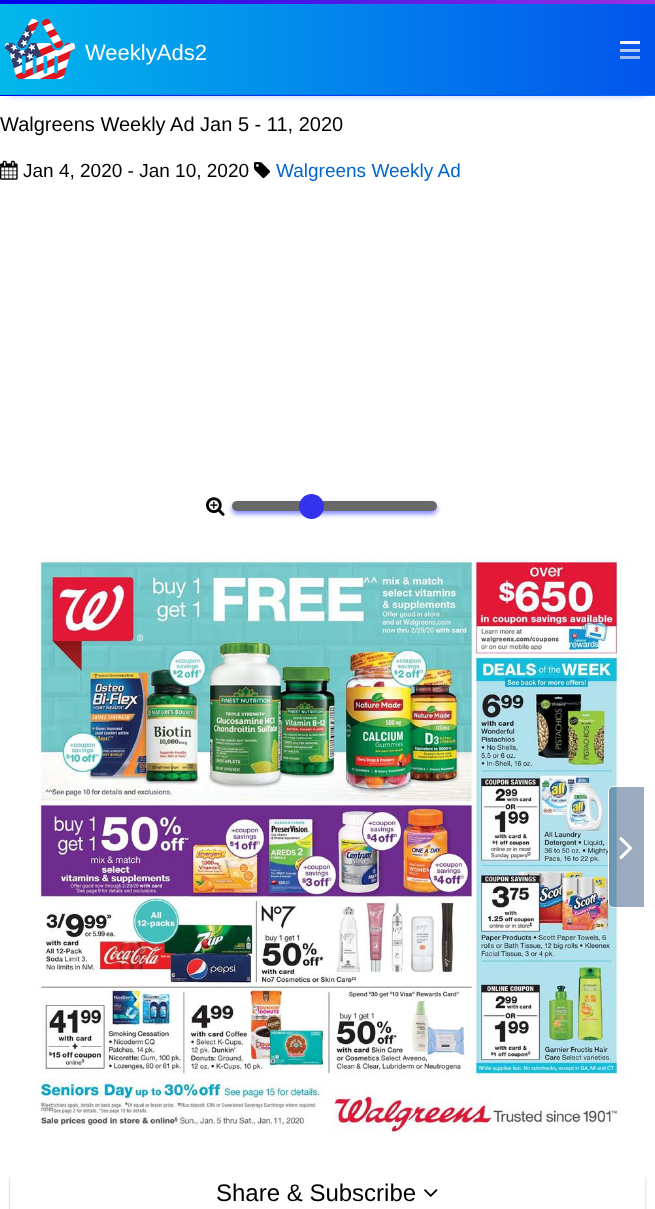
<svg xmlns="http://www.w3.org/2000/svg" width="655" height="1209">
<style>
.a{font:22px Liberation Sans;fill:#fff}
.b{font:20px Liberation Sans;fill:#000}
.c{font:19px Liberation Sans;fill:#000}
.d{font:19px Liberation Sans;fill:#06c}
.e{font:24px Liberation Sans;fill:#000}
</style>
<defs>
<linearGradient id="g1" gradientUnits="userSpaceOnUse" x1="0" y1="50" x2="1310" y2="49"><stop offset="0" stop-color="#02b8ec"/><stop offset="0.51" stop-color="#0252ec"/><stop offset="1" stop-color="#02b8ec"/></linearGradient>
<linearGradient id="g2" gradientUnits="userSpaceOnUse" x1="0" y1="50" x2="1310" y2="49"><stop offset="0" stop-color="#9edff2"/><stop offset="0.51" stop-color="#9ebaf2"/><stop offset="1" stop-color="#9edff2"/></linearGradient>
<linearGradient id="g3" gradientUnits="userSpaceOnUse" x1="0" y1="50" x2="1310" y2="49"><stop offset="0" stop-color="#b6e5f3"/><stop offset="0.51" stop-color="#b6cbf3"/><stop offset="1" stop-color="#b6e5f3"/></linearGradient>
<clipPath id="clip1"><path d="M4 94h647v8H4z"/></clipPath>
<clipPath id="clip2"><path d="M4 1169h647v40h-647zm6 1h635v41c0 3-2 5-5 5h-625c-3 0-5-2-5-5z" clip-rule="evenodd"/></clipPath>
</defs>
<rect width="100%" height="100%" fill="#fff"/>
<image href="1.png" x="0" y="0" width="655" height="4"/>
<path fill="url(#g1)" d="M0 4h655v91H0z"/>
<path fill="url(#g2)" d="M620 56h20v3H620z"/>
<path fill="url(#g3)" d="M620 49h20v3H620z"/>
<image href="2.png" x="0" y="95" width="655" height="1"/>
<g clip-path="url(#clip1)">
<path fill="#0050e86b" filter="blur(5px)" d="M10 24h635v70H10z"/>
</g>
<path fill="#f5f5f5" d="M620 41h20v3H620z"/>
<image href="3.png" x="5" y="19" width="70" height="60"/>
<image href="4.png" x="0" y="160" width="18" height="20"/>
<image href="5.png" x="254" y="162" width="16" height="17"/>
<image href="6.png" x="206" y="497" width="19" height="19"/>
<rect fill="#3337ff9e" filter="blur(2.5px)" x="232" y="504" width="205" height="10" rx="5"/>
<rect fill="#696969" x="232" y="501" width="205" height="10" rx="5"/>
<circle fill="#3333ed" cx="311.5" cy="506.5" r="12.5"/>
<image href="7.png" x="36" y="556" width="591" height="579"/>
<path fill="#00265963" stroke="#fff" d="M613 786.5h31.5v121h-31.5c-2.5 0-4.5-2-4.5-4.5v-112c0-2.5 2-4.5 4.5-4.5z"/>
<image href="8.png" x="619" y="837" width="14" height="23"/>
<g clip-path="url(#clip2)">
<rect fill="#00000040" filter="blur(1.5px)" x="10" y="1175" width="635" height="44" rx="5"/>
</g>
<image href="9.png" x="424" y="1189" width="14" height="8"/>
<text class="a" x="85" y="60">WeeklyAds2</text>
<text class="b" x="0" y="131">Walgreens Weekly Ad Jan 5 - 11, 2020</text>
<text class="c" x="23" y="177">Jan 4, 2020 - Jan 10, 2020</text>
<text class="d" x="276" y="177">Walgreens Weekly Ad</text>
<text class="e" x="216" y="1201">Share &amp; Subscribe</text>
</svg>
